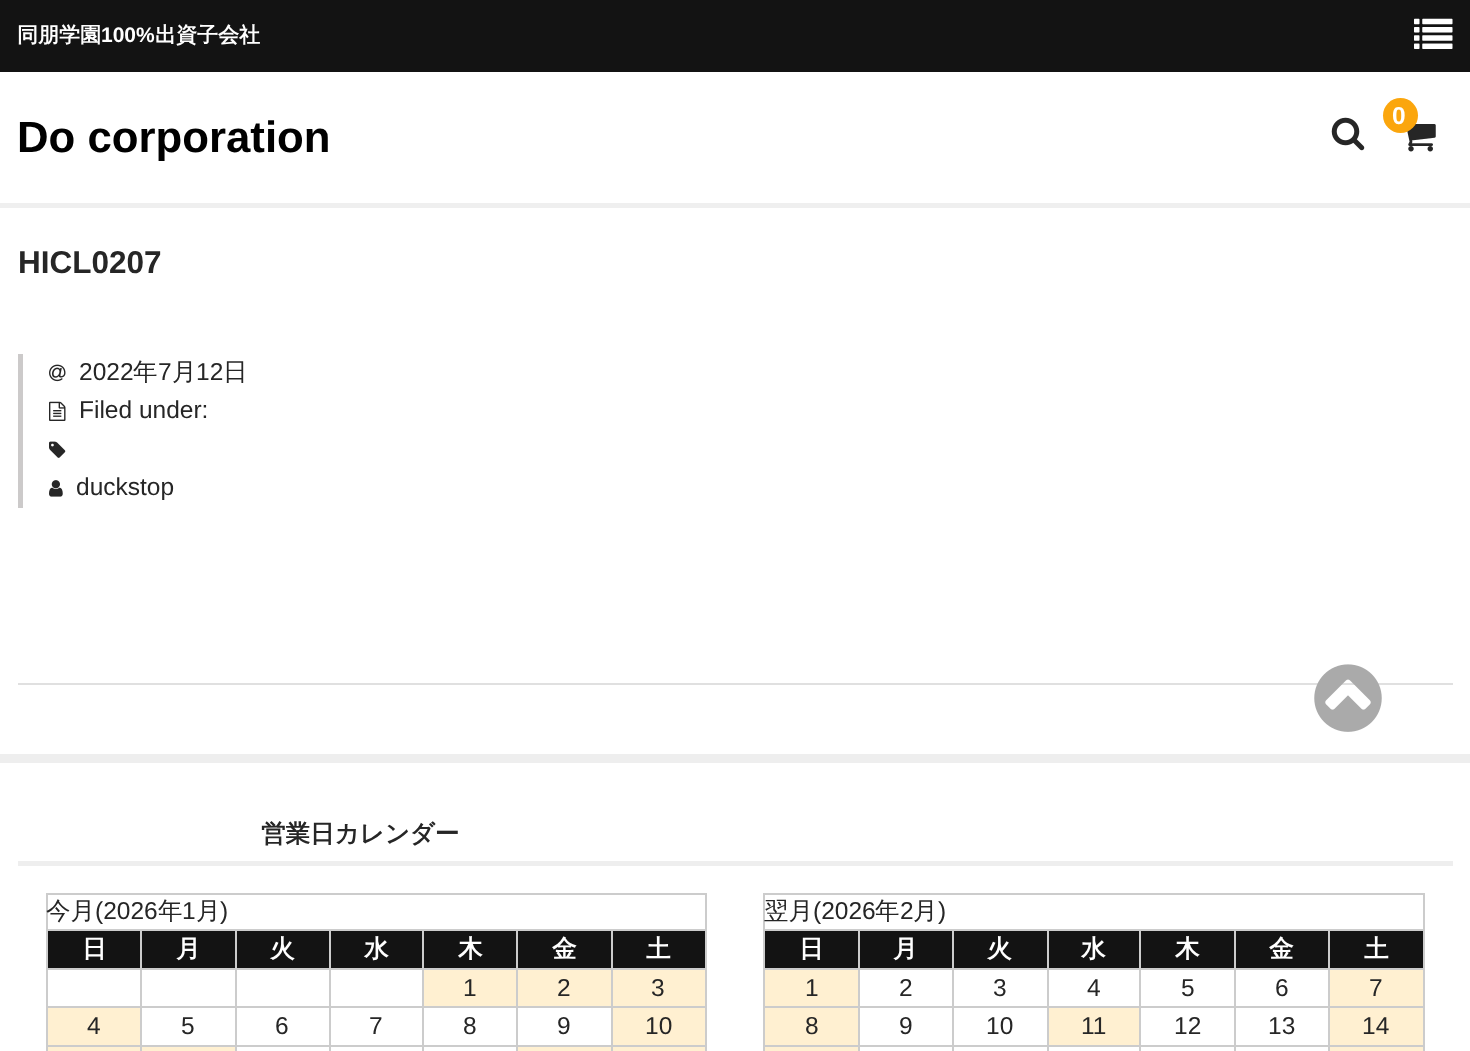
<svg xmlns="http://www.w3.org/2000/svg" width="1470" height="1051">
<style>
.a{font:bold 21px WenQuanYi Zen Hei;fill:#fff}
.b{font:bold 21px Liberation Sans;fill:#fff}
.c{font:bold 24.5px Liberation Sans;fill:#fff}
.d{font:bold 43.75px Liberation Sans;fill:#000}
.e{font:bold 31.5px Liberation Sans;fill:#262626}
.f{font:24.5px Liberation Sans;fill:#262626}
.g{font:500 24.5px WenQuanYi Zen Hei;fill:#262626}
.h{font:bold 24.5px WenQuanYi Zen Hei;fill:#262626}
.i{font:bold 24.5px WenQuanYi Zen Hei;fill:#fff}
</style>
<rect width="100%" height="100%" fill="#fff"/>
<path fill="#efefef" d="M0 203h1470v5H0z"/>
<path fill="#131313" d="M0 0h1470v72H0z"/>
<image href="1.png" x="1331" y="117" width="34" height="34"/>
<image href="2.png" x="1407" y="124" width="29" height="28"/>
<circle fill="#fba60d" cx="1400.5" cy="115.5" r="17.5"/>
<image href="3.png" x="1414" y="18" width="39" height="31"/>
<path fill="#cccaca" d="M18 354h5v154H18z"/>
<image href="4.png" x="49" y="364" width="17" height="18"/>
<image href="5.png" x="49" y="401" width="17" height="20"/>
<image href="6.png" x="49" y="441" width="17" height="17"/>
<image href="7.png" x="49" y="480" width="14" height="17"/>
<path fill="#e0e0e0" d="M18 683h1435v2H18z"/>
<path fill="#eee" d="M0 754h1470v9H0z"/>
<path fill="#eee" d="M18 861h1435v5H18z"/>
<path fill="#ccc" d="M46 893h661v2H46z"/>
<path fill="#ccc" d="M705 893h2v158H705z"/>
<path fill="#fff0d1" d="M47 1047h188v4H47z"/>
<path fill="#ccc" d="M46 893h2v158H46z"/>
<path fill="#131313" d="M48 931h92v37H48z"/>
<path fill="#ccc" d="M611 929h96v2H611z"/>
<path fill="#ccc" d="M611 968h96v2H611z"/>
<path fill="#ccc" d="M611 1006h96v2H611z"/>
<path fill="#ccc" d="M611 1045h96v2H611z"/>
<path fill="#fff0d1" d="M518 1047h187v4H518z"/>
<path fill="#ccc" d="M611 1045h2v6H611z"/>
<path fill="#ccc" d="M516 1045h97v2H516z"/>
<path fill="#ccc" d="M611 1006h2v41H611z"/>
<path fill="#ccc" d="M516 1006h97v2H516z"/>
<path fill="#ccc" d="M611 968h2v40H611z"/>
<path fill="#ccc" d="M516 968h97v2H516z"/>
<path fill="#ccc" d="M611 929h2v41H611z"/>
<path fill="#ccc" d="M516 929h97v2H516z"/>
<path fill="#ccc" d="M516 1045h2v6H516z"/>
<path fill="#ccc" d="M422 1045h96v2H422z"/>
<path fill="#ccc" d="M516 1006h2v41H516z"/>
<path fill="#ccc" d="M422 1006h96v2H422z"/>
<path fill="#ccc" d="M516 968h2v40H516z"/>
<path fill="#ccc" d="M422 968h96v2H422z"/>
<path fill="#ccc" d="M516 929h2v41H516z"/>
<path fill="#ccc" d="M422 929h96v2H422z"/>
<path fill="#ccc" d="M422 1045h2v6H422z"/>
<path fill="#ccc" d="M329 1045h95v2H329z"/>
<path fill="#ccc" d="M422 1006h2v41H422z"/>
<path fill="#ccc" d="M329 1006h95v2H329z"/>
<path fill="#ccc" d="M422 968h2v40H422z"/>
<path fill="#ccc" d="M329 968h95v2H329z"/>
<path fill="#ccc" d="M422 929h2v41H422z"/>
<path fill="#ccc" d="M329 929h95v2H329z"/>
<path fill="#ccc" d="M329 1045h2v6H329z"/>
<path fill="#ccc" d="M235 1045h96v2H235z"/>
<path fill="#ccc" d="M329 1006h2v41H329z"/>
<path fill="#ccc" d="M235 1006h96v2H235z"/>
<path fill="#ccc" d="M329 968h2v40H329z"/>
<path fill="#ccc" d="M235 968h96v2H235z"/>
<path fill="#ccc" d="M329 929h2v41H329z"/>
<path fill="#ccc" d="M235 929h96v2H235z"/>
<path fill="#ccc" d="M235 1045h2v6H235z"/>
<path fill="#ccc" d="M140 1045h96v2H140z"/>
<path fill="#ccc" d="M235 1006h2v41H235z"/>
<path fill="#ccc" d="M140 1006h96v2H140z"/>
<path fill="#ccc" d="M235 968h2v40H235z"/>
<path fill="#ccc" d="M140 968h96v2H140z"/>
<path fill="#ccc" d="M235 929h2v41H235z"/>
<path fill="#ccc" d="M140 929h96v2H140z"/>
<path fill="#ccc" d="M140 1045h2v6H140z"/>
<path fill="#ccc" d="M46 1045h96v2H46z"/>
<path fill="#ccc" d="M140 1006h2v41H140z"/>
<path fill="#ccc" d="M46 1006h96v2H46z"/>
<path fill="#ccc" d="M140 968h2v40H140z"/>
<path fill="#ccc" d="M46 968h96v2H46z"/>
<path fill="#ccc" d="M140 929h2v41H140z"/>
<path fill="#ccc" d="M46 929h96v2H46z"/>
<path fill="#131313" d="M142 931h93v37H142z"/>
<path fill="#131313" d="M237 931h92v37H237z"/>
<path fill="#131313" d="M331 931h91v37H331z"/>
<path fill="#131313" d="M424 931h92v37H424z"/>
<path fill="#131313" d="M518 931h93v37H518z"/>
<path fill="#131313" d="M613 931h92v37H613z"/>
<path fill="#fff0d1" d="M424 970h92v36H424z"/>
<path fill="#fff0d1" d="M518 970h93v36H518z"/>
<path fill="#fff0d1" d="M613 970h92v36H613z"/>
<path fill="#fff0d1" d="M48 1008h92v37H48z"/>
<path fill="#fff0d1" d="M613 1008h92v37H613z"/>
<path fill="#ccc" d="M763 893h662v2H763z"/>
<path fill="#ccc" d="M1423 893h2v158H1423z"/>
<path fill="#ccc" d="M763 893h2v158H763z"/>
<path fill="#131313" d="M765 931h93v37H765z"/>
<path fill="#ccc" d="M1328 929h97v2H1328z"/>
<path fill="#ccc" d="M1328 968h97v2H1328z"/>
<path fill="#ccc" d="M1328 1006h97v2H1328z"/>
<path fill="#ccc" d="M1328 1045h97v2H1328z"/>
<path fill="#fff0d1" d="M1328 1047h95v4H1328z"/>
<path fill="#ccc" d="M1328 1045h2v6H1328z"/>
<path fill="#ccc" d="M1234 1045h96v2H1234z"/>
<path fill="#ccc" d="M1328 1006h2v41H1328z"/>
<path fill="#ccc" d="M1234 1006h96v2H1234z"/>
<path fill="#ccc" d="M1328 968h2v40H1328z"/>
<path fill="#ccc" d="M1234 968h96v2H1234z"/>
<path fill="#ccc" d="M1328 929h2v41H1328z"/>
<path fill="#ccc" d="M1234 929h96v2H1234z"/>
<path fill="#ccc" d="M1234 1045h2v6H1234z"/>
<path fill="#ccc" d="M1139 1045h97v2H1139z"/>
<path fill="#ccc" d="M1234 1006h2v41H1234z"/>
<path fill="#ccc" d="M1139 1006h97v2H1139z"/>
<path fill="#ccc" d="M1234 968h2v40H1234z"/>
<path fill="#ccc" d="M1139 968h97v2H1139z"/>
<path fill="#ccc" d="M1234 929h2v41H1234z"/>
<path fill="#ccc" d="M1139 929h97v2H1139z"/>
<path fill="#ccc" d="M1139 1045h2v6H1139z"/>
<path fill="#ccc" d="M1047 1045h94v2H1047z"/>
<path fill="#ccc" d="M1139 1006h2v41H1139z"/>
<path fill="#ccc" d="M1047 1006h94v2H1047z"/>
<path fill="#ccc" d="M1139 968h2v40H1139z"/>
<path fill="#ccc" d="M1047 968h94v2H1047z"/>
<path fill="#ccc" d="M1139 929h2v41H1139z"/>
<path fill="#ccc" d="M1047 929h94v2H1047z"/>
<path fill="#ccc" d="M1047 1045h2v6H1047z"/>
<path fill="#ccc" d="M952 1045h96v2H952z"/>
<path fill="#ccc" d="M1047 1006h2v41H1047z"/>
<path fill="#ccc" d="M952 1006h96v2H952z"/>
<path fill="#ccc" d="M1047 968h2v40H1047z"/>
<path fill="#ccc" d="M952 968h96v2H952z"/>
<path fill="#ccc" d="M1047 929h2v41H1047z"/>
<path fill="#ccc" d="M952 929h96v2H952z"/>
<path fill="#ccc" d="M952 1045h2v6H952z"/>
<path fill="#ccc" d="M858 1045h96v2H858z"/>
<path fill="#ccc" d="M952 1006h2v41H952z"/>
<path fill="#ccc" d="M858 1006h96v2H858z"/>
<path fill="#ccc" d="M952 968h2v40H952z"/>
<path fill="#ccc" d="M858 968h96v2H858z"/>
<path fill="#ccc" d="M952 929h2v41H952z"/>
<path fill="#ccc" d="M858 929h96v2H858z"/>
<path fill="#fff0d1" d="M765 1047h94v4H765z"/>
<path fill="#ccc" d="M858 1045h2v6H858z"/>
<path fill="#ccc" d="M763 1045h96v2H763z"/>
<path fill="#ccc" d="M858 1006h2v41H858z"/>
<path fill="#ccc" d="M763 1006h96v2H763z"/>
<path fill="#ccc" d="M858 968h2v40H858z"/>
<path fill="#ccc" d="M763 968h96v2H763z"/>
<path fill="#ccc" d="M858 929h2v41H858z"/>
<path fill="#ccc" d="M763 929h96v2H763z"/>
<path fill="#131313" d="M860 931h92v37H860z"/>
<path fill="#131313" d="M954 931h93v37H954z"/>
<path fill="#131313" d="M1049 931h90v37H1049z"/>
<path fill="#131313" d="M1141 931h93v37H1141z"/>
<path fill="#131313" d="M1236 931h92v37H1236z"/>
<path fill="#131313" d="M1330 931h93v37H1330z"/>
<path fill="#fff0d1" d="M765 970h93v36H765z"/>
<path fill="#fff0d1" d="M1330 970h93v36H1330z"/>
<path fill="#fff0d1" d="M765 1008h93v37H765z"/>
<path fill="#fff0d1" d="M1049 1008h90v37H1049z"/>
<path fill="#fff0d1" d="M1330 1008h93v37H1330z"/>
<image href="8.png" x="1314" y="664" width="68" height="68"/>
<text class="a" x="17" y="42">同朋学園</text>
<text class="b" x="101" y="42">100%</text>
<text class="a" x="155" y="42">出資子会社</text>
<text class="c" x="1392" y="124">0</text>
<text class="d" x="17" y="152">Do corporation</text>
<text class="e" x="18" y="273">HICL0207</text>
<text class="f" x="79" y="380">2022</text>
<text class="g" x="133" y="380">年</text>
<text class="f" x="158" y="380">7</text>
<text class="g" x="172" y="380">月</text>
<text class="f" x="196" y="380">12</text>
<text class="g" x="223" y="380">日</text>
<text class="f" x="79" y="418">Filed under:</text>
<text class="f" x="76" y="495">duckstop</text>
<text class="h" x="261" y="842">営業日カレンダー</text>
<text class="g" x="46" y="919">今月</text>
<text class="f" x="95" y="919">(2026</text>
<text class="g" x="158" y="919">年</text>
<text class="f" x="182" y="919">1</text>
<text class="g" x="196" y="919">月</text>
<text class="f" x="220" y="919">)</text>
<text class="i" x="82" y="957">日</text>
<text class="i" x="176" y="957">月</text>
<text class="i" x="270" y="957">火</text>
<text class="i" x="364" y="957">水</text>
<text class="i" x="458" y="957">木</text>
<text class="i" x="552" y="957">金</text>
<text class="i" x="646" y="957">土</text>
<text class="f" x="463" y="996">1</text>
<text class="f" x="557" y="996">2</text>
<text class="f" x="651" y="996">3</text>
<text class="f" x="87" y="1034">4</text>
<text class="f" x="181" y="1034">5</text>
<text class="f" x="275" y="1034">6</text>
<text class="f" x="369" y="1034">7</text>
<text class="f" x="463" y="1034">8</text>
<text class="f" x="557" y="1034">9</text>
<text class="f" x="645" y="1034">10</text>
<text class="g" x="764" y="919">翌月</text>
<text class="f" x="813" y="919">(2026</text>
<text class="g" x="875" y="919">年</text>
<text class="f" x="900" y="919">2</text>
<text class="g" x="913" y="919">月</text>
<text class="f" x="938" y="919">)</text>
<text class="i" x="799" y="957">日</text>
<text class="i" x="893" y="957">月</text>
<text class="i" x="987" y="957">火</text>
<text class="i" x="1081" y="957">水</text>
<text class="i" x="1175" y="957">木</text>
<text class="i" x="1269" y="957">金</text>
<text class="i" x="1364" y="957">土</text>
<text class="f" x="805" y="996">1</text>
<text class="f" x="899" y="996">2</text>
<text class="f" x="993" y="996">3</text>
<text class="f" x="1087" y="996">4</text>
<text class="f" x="1181" y="996">5</text>
<text class="f" x="1275" y="996">6</text>
<text class="f" x="1369" y="996">7</text>
<text class="f" x="805" y="1034">8</text>
<text class="f" x="899" y="1034">9</text>
<text class="f" x="986" y="1034">10</text>
<text class="f" x="1081" y="1034">11</text>
<text class="f" x="1174" y="1034">12</text>
<text class="f" x="1268" y="1034">13</text>
<text class="f" x="1362" y="1034">14</text>
</svg>
